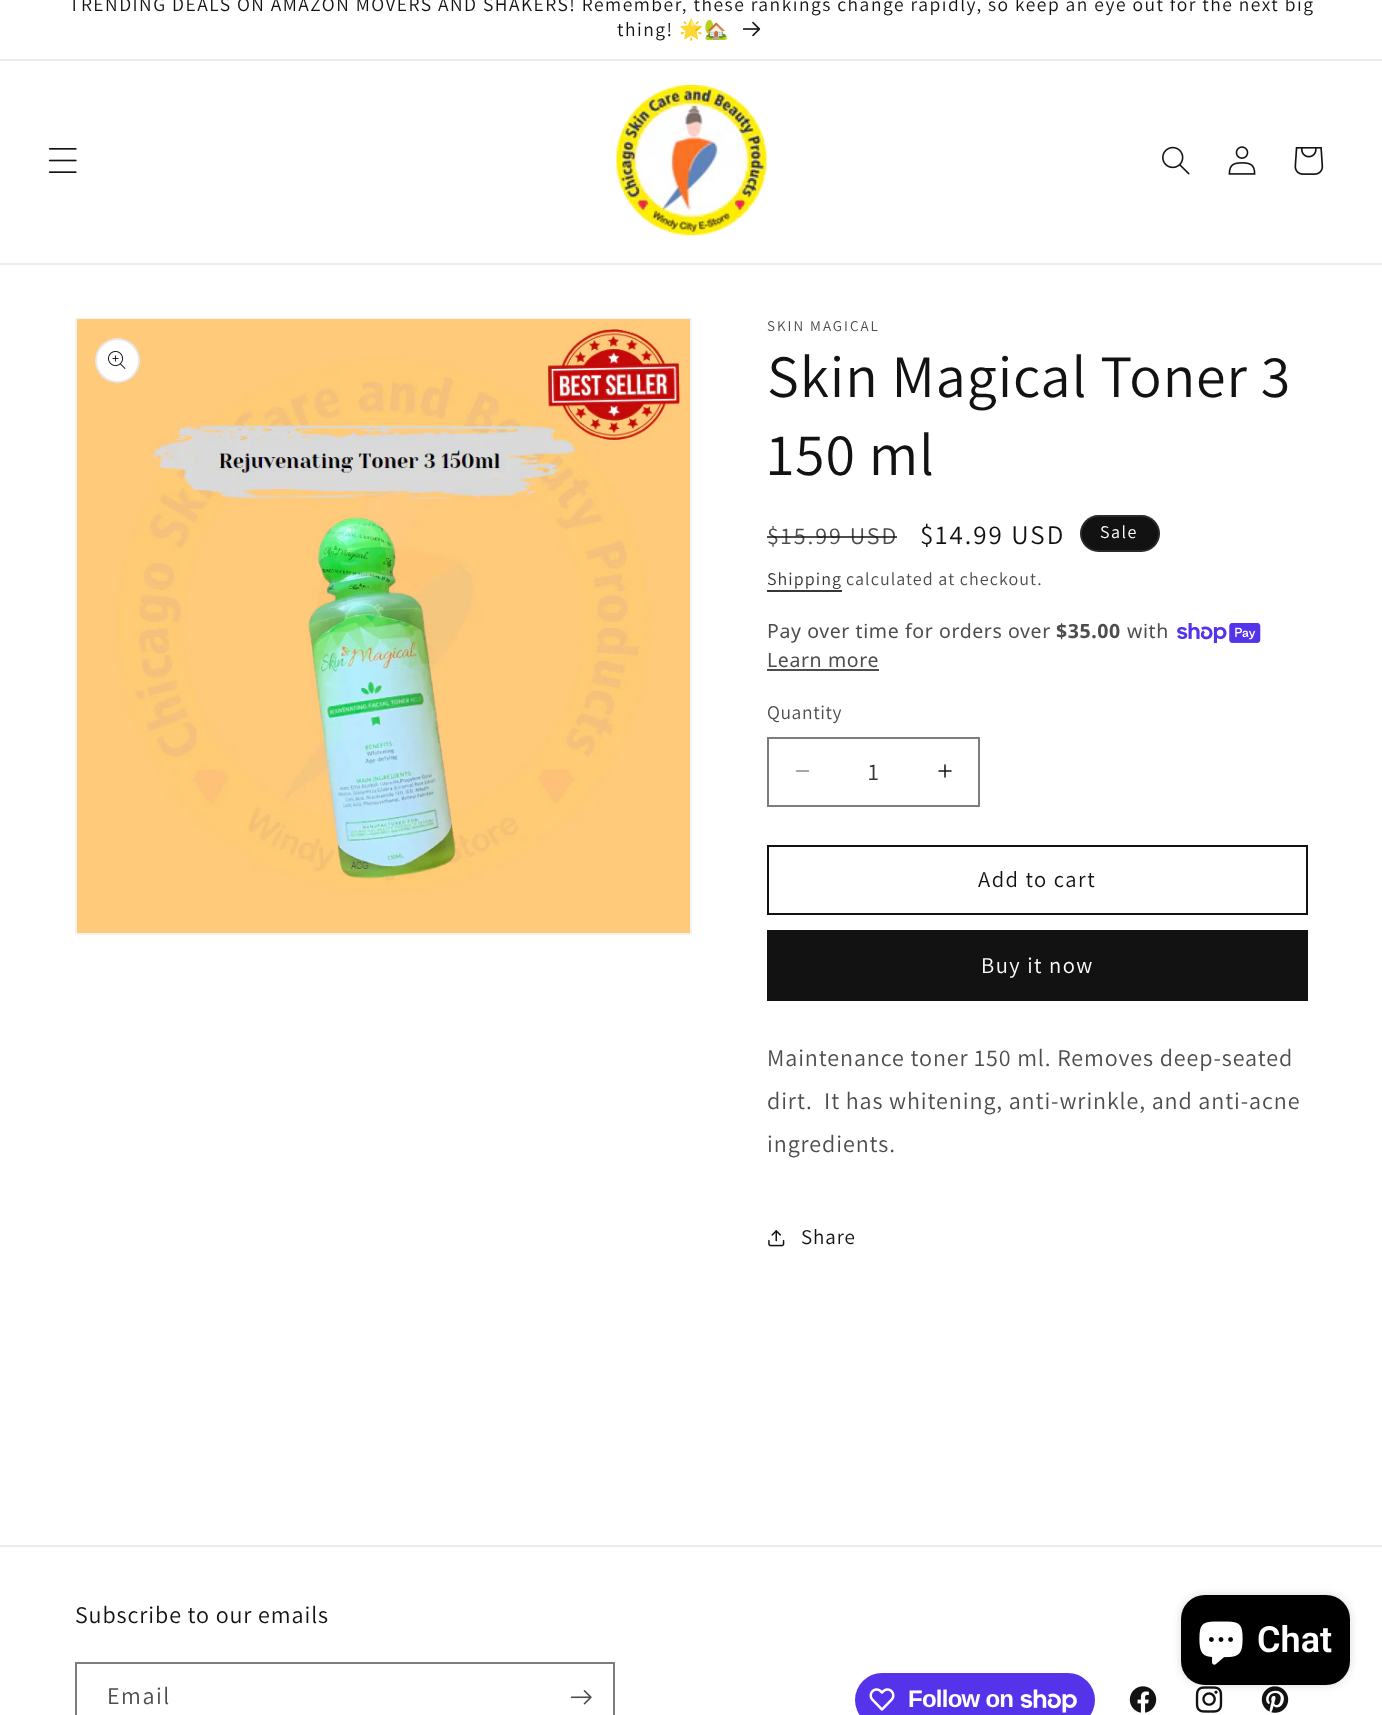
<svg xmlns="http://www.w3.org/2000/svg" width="1382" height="1715">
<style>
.a{font:19.5px Assistant;letter-spacing:1.5px;fill:#121212}
.b{font:19.5px Noto Color Emoji;letter-spacing:1.5px;fill:#121212}
.c{font:15px Assistant;letter-spacing:2px;fill:#4d4d4d}
.d{font:60px Assistant;letter-spacing:0.9px;fill:#121212}
.e{font:24px Assistant;letter-spacing:2px;fill:#4d4d4d}
.f{font:27px Assistant;letter-spacing:2px;fill:#121212}
.g{font:18px Assistant;letter-spacing:1.5px;fill:#fff}
.h{font:18px Assistant;letter-spacing:1.05px;fill:#363636}
.i{font:18px Assistant;letter-spacing:1.05px;fill:#4d4d4d}
.j{font:19.5px Noto Sans;letter-spacing:0.6px;fill:#4d4d4d}
.k{font:bold 19.5px Noto Sans;letter-spacing:0.6px;fill:#4d4d4d}
.l{font:19.5px Assistant;letter-spacing:0.6px;fill:#4d4d4d}
.m{font:24px Assistant;fill:#363636}
.n{font:22.5px Assistant;letter-spacing:1.5px;fill:#121212}
.o{font:22.5px Assistant;letter-spacing:1.5px;fill:#fff}
.p{font:24px Assistant;letter-spacing:0.9px;fill:#4d4d4d}
.q{font:21px Assistant;letter-spacing:0.9px;fill:#121212}
.r{font:24px Assistant;letter-spacing:0.9px;fill:#121212}
.s{font:24px Assistant;letter-spacing:1.5px;fill:#4d4d4d}
.t{font:bold 24px Liberation Sans;letter-spacing:-0.75px;fill:#fff}
.u{font:600 36px Roboto;fill:#fff}
</style>
<rect width="100%" height="100%" fill="#fff"/>
<path fill="#ececec" d="M0 59h1382v2H0z"/>
<image href="1.png" x="743" y="21" width="18" height="16"/>
<path fill="#ececec" d="M0 263h1382v2H0z"/>
<image href="2.png" x="48" y="148" width="29" height="25"/>
<image href="3.png" x="616" y="85" width="151" height="151"/>
<image href="4.png" x="1162" y="146" width="28" height="29"/>
<image href="5.png" x="1228" y="146" width="28" height="29"/>
<image href="6.png" x="1294" y="147" width="30" height="28"/>
<path fill="none" stroke="#f3f3f3" stroke-width="2" d="M76 319h615v615H76z"/>
<image href="7.png" x="77" y="319" width="613" height="614"/>
<circle fill="#fff" cx="117.5" cy="360.5" r="22.5"/>
<circle fill="none" stroke="#1212121a" stroke-width="2" cx="117.5" cy="360.5" r="21.5"/>
<image href="8.png" x="108" y="351" width="18" height="18"/>
<rect fill="#121212" x="1080" y="515" width="80" height="37" rx="18.5"/>
<rect fill="none" stroke="#ffffff1a" stroke-width="2" x="1081" y="516" width="78" height="35" rx="17.5"/>
<path fill="#363636" d="M767 590h75v2H767z"/>
<image href="9.png" x="1177" y="623" width="84" height="21"/>
<path fill="#4d4d4d" d="M767 669h112v2H767z"/>
<image href="10.png" x="795" y="770" width="15" height="2"/>
<image href="11.png" x="938" y="764" width="14" height="14"/>
<path fill="none" stroke="#7d7d7d" stroke-width="2" d="M768 738h211v68H768z"/>
<path fill="none" stroke="#121212" stroke-width="2" d="M768 846h539v68H768z"/>
<path fill="#121212" d="M767 930h541v71H767z"/>
<image href="12.png" x="768" y="1230" width="17" height="17"/>
<path fill="#ececec" d="M0 1545h1382v2H0z"/>
<path fill="none" stroke="#7d7d7d" stroke-width="2" d="M76 1663h538v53H76z"/>
<image href="13.png" x="570" y="1690" width="22" height="15"/>
<rect fill="#5433eb" x="855" y="1673" width="240" height="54" rx="27"/>
<image href="14.png" x="869" y="1688" width="26" height="23"/>
<image href="15.png" x="1020" y="1689" width="57" height="24"/>
<image href="16.png" x="1129" y="1686" width="28" height="27"/>
<image href="17.png" x="1195" y="1686" width="28" height="27"/>
<image href="18.png" x="1261" y="1686" width="28" height="27"/>
<rect fill="#00000026" filter="blur(4px)" x="1181" y="1595" width="169" height="90" rx="24"/>
<rect fill="#000" x="1181" y="1595" width="169" height="90" rx="24"/>
<image href="19.png" x="1199" y="1621" width="44" height="44"/>
<text class="a" x="69" y="11">TRENDING DEALS ON AMAZON MOVERS AND SHAKERS! Remember, these rankings change rapidly, so keep an eye out for the next big</text>
<text class="a" x="617" y="36">thing!</text>
<text class="b" x="679" y="36">🌟🏡</text>
<text class="c" x="767" y="331">SKIN MAGICAL</text>
<text class="d" x="767" y="397">Skin Magical Toner 3</text>
<text class="d" x="767" y="475">150 ml</text>
<text class="e" x="767" y="544">$15.99 USD</text>
<path fill="#121212bf" d="M767 536h130v2H767z"/>
<text class="f" x="920" y="544">$14.99 USD</text>
<text class="g" x="1100" y="538">Sale</text>
<text class="h" x="767" y="585">Shipping</text>
<text class="i" x="846" y="585">calculated at checkout.</text>
<text class="j" x="767" y="638">Pay over time for orders over</text>
<text class="k" x="1056" y="638">$35.00</text>
<text class="j" x="1127" y="638">with</text>
<text class="j" x="767" y="667">Learn more</text>
<text class="l" x="767" y="719">Quantity</text>
<text class="m" x="868" y="780">1</text>
<text class="n" x="978" y="887">Add to cart</text>
<text class="o" x="981" y="973">Buy it now</text>
<text class="p" x="767" y="1066">Maintenance toner 150 ml. Removes deep-seated</text>
<text class="p" xml:space="preserve" x="767" y="1109">dirt.  It has whitening, anti-wrinkle, and anti-acne</text>
<text class="p" x="767" y="1152">ingredients.</text>
<text class="q" x="801" y="1244">Share</text>
<text class="r" x="75" y="1623">Subscribe to our emails</text>
<text class="s" x="107" y="1704">Email</text>
<text class="t" x="908" y="1707">Follow on</text>
<text class="u" x="1257" y="1652">Chat</text>
</svg>
